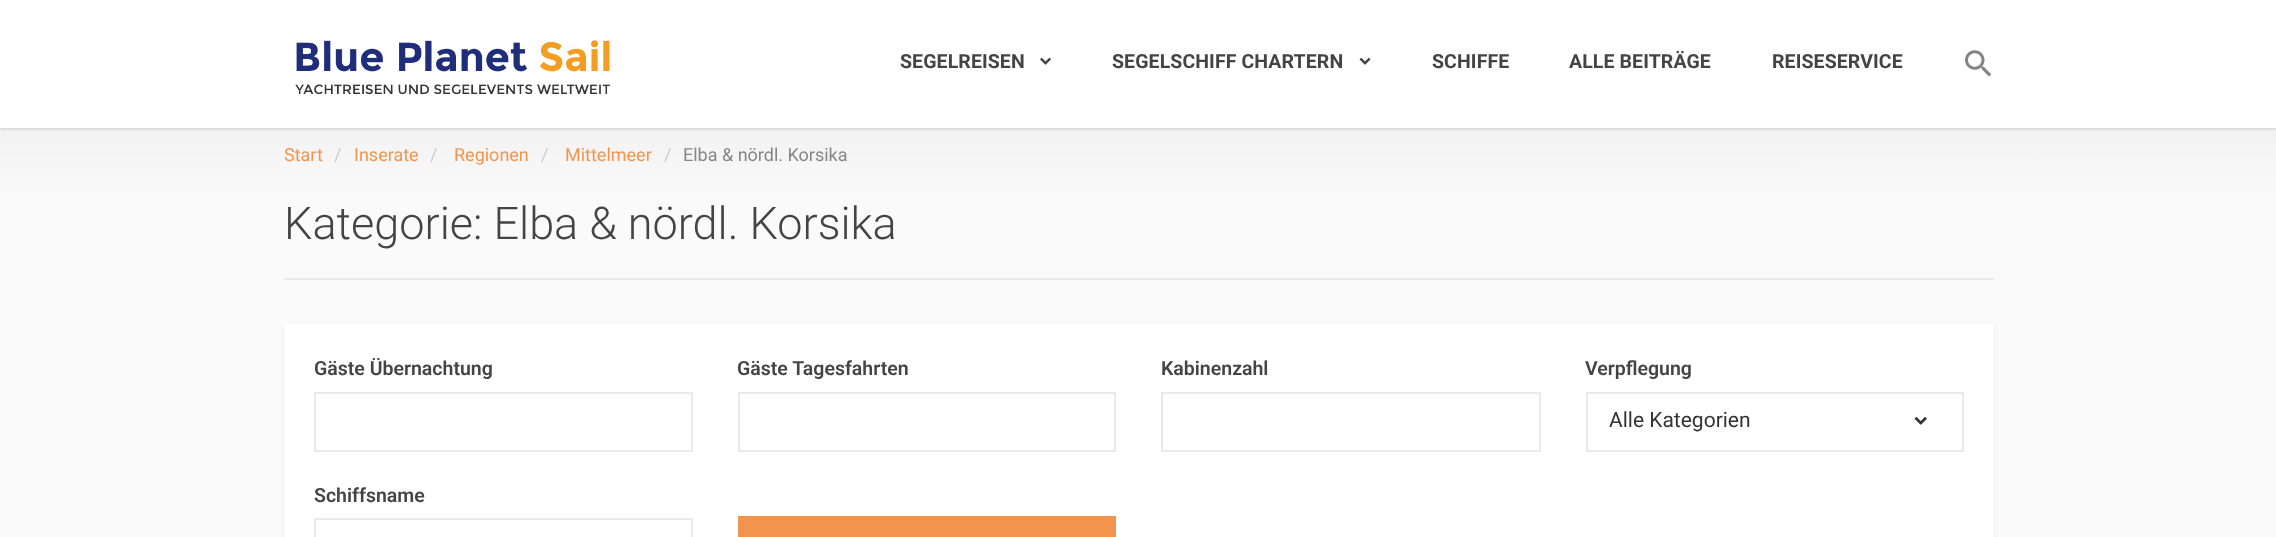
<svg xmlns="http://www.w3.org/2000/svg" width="2276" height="537">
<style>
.a{font:bold 19.5px Roboto;letter-spacing:0.1px;fill:#444}
.b{font:18px Roboto;fill:#f2944e}
.c{font:18px Roboto;fill:#ccc}
.d{font:18px Roboto;fill:#868686}
.e{font:300 45px Roboto;fill:#444}
.f{font:600 19.5px Roboto;fill:#444}
.g{font:21px Roboto;fill:#333}
</style>
<defs>
<linearGradient id="g1" gradientUnits="userSpaceOnUse" x1="1138" y1="127" x2="1139" y2="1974"><stop offset="0" stop-color="#f2f2f2"/><stop offset="0.04" stop-color="#fafafa"/></linearGradient>
</defs>
<rect width="100%" height="100%" fill="#fff"/>
<path fill="url(#g1)" d="M0 128h2276v409H0z"/>
<path fill="#00000026" filter="blur(1.5px)" d="M0 2h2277v127H0z"/>
<path fill="#fff" d="M0 0h2276v128H0z"/>
<image href="1.png" x="295" y="40" width="315" height="55"/>
<image href="2.png" x="1040" y="57" width="11" height="8"/>
<image href="3.png" x="1359" y="57" width="12" height="8"/>
<image href="4.png" x="1965" y="50" width="27" height="27"/>
<path fill="#e9e9e9" d="M284 278h1710v2H284z"/>
<path fill="#0000001a" filter="blur(1.5px)" d="M284 326h1710v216H284z"/>
<path fill="#fff" d="M284 324h1710v213H284z"/>
<path fill="none" stroke="#e9e9e9" stroke-width="2" d="M315 393h377v58H315z"/>
<path fill="none" stroke="#e9e9e9" stroke-width="2" d="M739 393h376v58H739z"/>
<path fill="none" stroke="#e9e9e9" stroke-width="2" d="M1162 393h378v58H1162z"/>
<path fill="none" stroke="#e9e9e9" stroke-width="2" d="M1587 393h376v58H1587z"/>
<image href="5.png" x="1914" y="417" width="13" height="8"/>
<path fill="none" stroke="#e9e9e9" stroke-width="2" d="M315 519h377v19H315z"/>
<path fill="#f2944e" d="M738 516h378v21H738z"/>
<text class="a" x="900" y="68">SEGELREISEN</text>
<text class="a" x="1112" y="68">SEGELSCHIFF CHARTERN</text>
<text class="a" x="1432" y="68">SCHIFFE</text>
<text class="a" x="1569" y="68">ALLE BEITRÄGE</text>
<text class="a" x="1772" y="68">REISESERVICE</text>
<text class="b" x="284" y="161">Start</text>
<text class="c" x="334" y="161">/</text>
<text class="b" x="354" y="161">Inserate</text>
<text class="c" x="430" y="161">/</text>
<text class="b" x="454" y="161">Regionen</text>
<text class="c" x="541" y="161">/</text>
<text class="b" x="565" y="161">Mittelmeer</text>
<text class="c" x="664" y="161">/</text>
<text class="d" x="683" y="161">Elba &amp; nördl. Korsika</text>
<text class="e" x="284" y="239">Kategorie: Elba &amp; nördl. Korsika</text>
<text class="f" x="314" y="375">Gäste Übernachtung</text>
<text class="f" x="737" y="375">Gäste Tagesfahrten</text>
<text class="f" x="1161" y="375">Kabinenzahl</text>
<text class="f" x="1585" y="375">Verpflegung</text>
<text class="g" x="1609" y="427">Alle Kategorien</text>
<text class="f" x="314" y="502">Schiffsname</text>
</svg>
